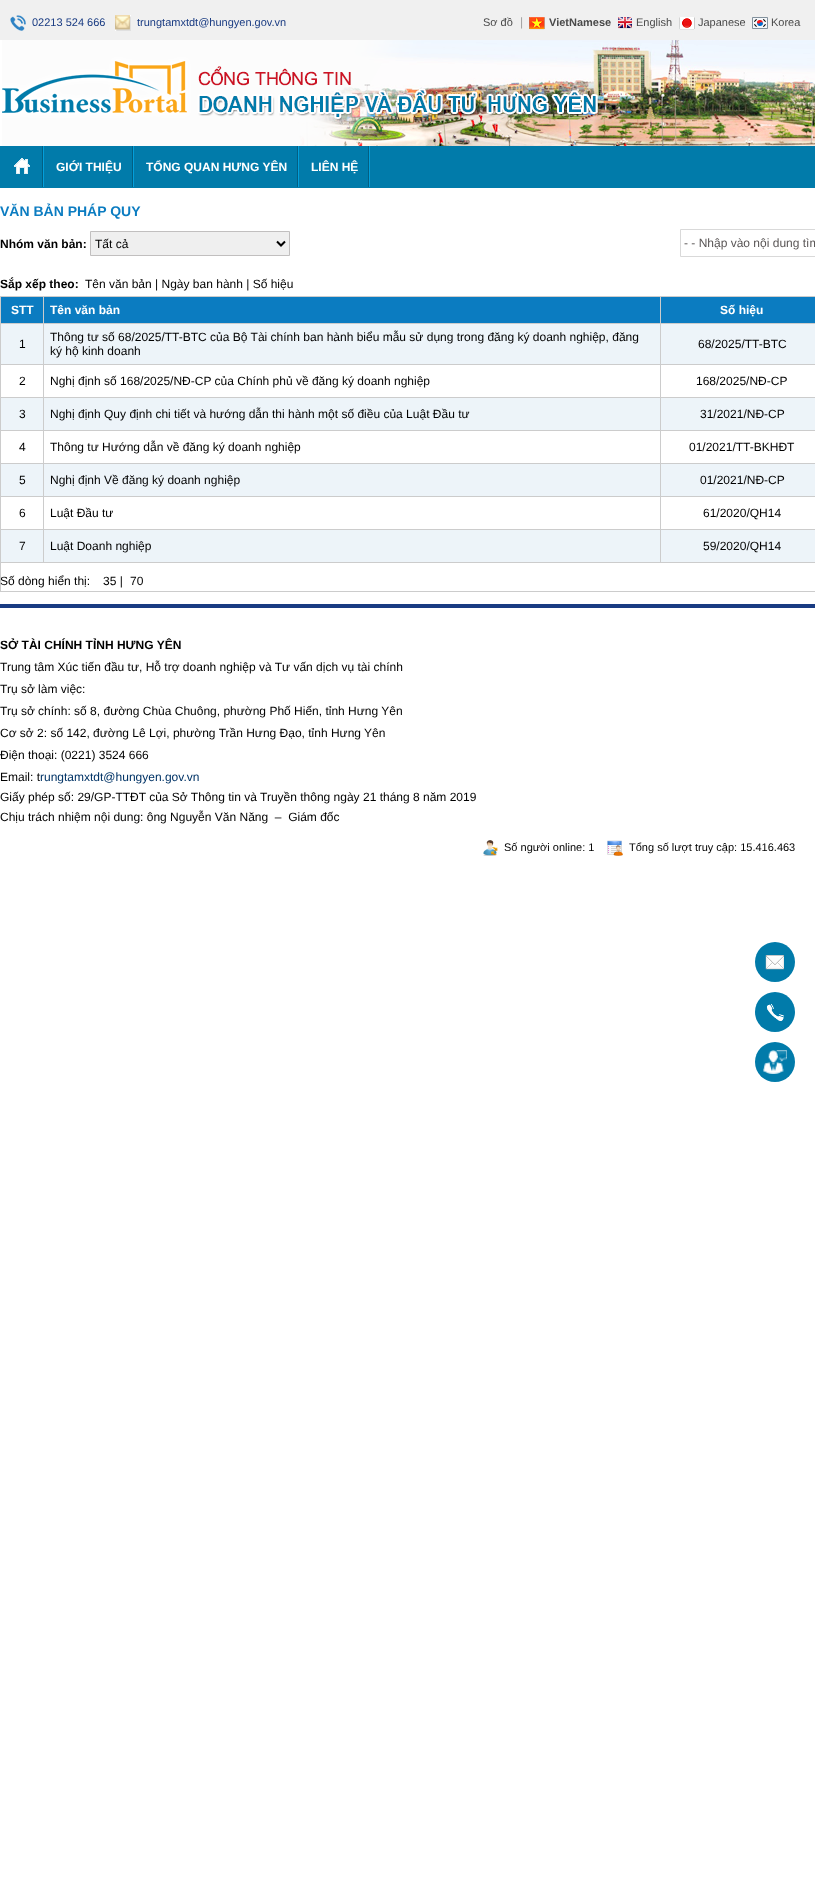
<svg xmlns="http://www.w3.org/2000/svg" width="815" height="1884">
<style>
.a{font:11px Liberation Sans;fill:#193b82}
.b{font:11px Liberation Sans;fill:#4a4a4a}
.c{font:12px Liberation Sans;fill:#a1a1a1}
.d{font:bold 11px Liberation Sans;fill:#4a4a4a}
.e{font:bold 12px Liberation Sans;fill:#fff}
.f{font:bold 14px Liberation Sans;fill:#0b7cc1}
.g{font:bold 12px Liberation Sans;fill:#000}
.h{font:12px Liberation Sans;fill:#000}
.i{font:12px Liberation Sans;fill:#5a5656}
.j{font:12px Liberation Sans;fill:#036}
.k{font:11px Liberation Sans;fill:#000}
</style>
<rect width="100%" height="100%" fill="#fff"/>
<path fill="#f0f0f0" d="M0 0h815v40H0z"/>
<image href="1.png" x="10" y="15" width="16" height="16"/>
<image href="2.png" x="115" y="15" width="16" height="16"/>
<image href="3.png" x="529" y="17" width="16" height="13"/>
<image href="4.png" x="618" y="17" width="14" height="12"/>
<image href="5.png" x="679" y="17" width="16" height="13"/>
<image href="6.png" x="752" y="17" width="16" height="12"/>
<image href="7.png" x="2" y="40" width="813" height="106"/>
<path fill="#017baa" d="M0 146h815v42H0z"/>
<image href="8.png" x="14" y="158" width="16" height="16"/>
<image href="9.png" x="42" y="146" width="2" height="41"/>
<image href="9.png" x="132" y="146" width="2" height="41"/>
<image href="9.png" x="297" y="146" width="2" height="41"/>
<image href="9.png" x="368" y="146" width="2" height="41"/>
<path fill="#efefef" stroke="#c1bfbf" d="M90.5 231.5h199v24H90.5z"/>
<path fill="none" stroke="#000" stroke-width="2" d="M277 241.5l4 4l4-4"/>
<path fill="none" stroke="#d9d9d9" d="M680.5 229.5h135v27H680.5z"/>
<path fill="#ccc" d="M0 296h815v1H0z"/>
<path fill="#ccc" d="M0 591h815v1H0z"/>
<path fill="#ccc" d="M0 296h1v296H0z"/>
<path fill="#0b7cc1" d="M1 297h814v26H1z"/>
<path fill="#edf4f9" d="M1 324h814v40H1z"/>
<path fill="#ccc" d="M0 323h815v1H0z"/>
<path fill="#ccc" d="M0 364h815v1H0z"/>
<path fill="#edf4f9" d="M1 398h814v32H1z"/>
<path fill="#ccc" d="M0 397h815v1H0z"/>
<path fill="#ccc" d="M0 430h815v1H0z"/>
<path fill="#edf4f9" d="M1 464h814v32H1z"/>
<path fill="#ccc" d="M0 463h815v1H0z"/>
<path fill="#ccc" d="M0 496h815v1H0z"/>
<path fill="#edf4f9" d="M1 530h814v32H1z"/>
<path fill="#ccc" d="M0 529h815v1H0z"/>
<path fill="#ccc" d="M0 562h815v1H0z"/>
<path fill="#ccc" d="M43 296h1v267H43z"/>
<path fill="#ccc" d="M660 296h1v267H660z"/>
<circle fill="#017baa" cx="775" cy="962" r="20"/>
<image href="10.png" x="765" y="955" width="19" height="15"/>
<circle fill="#017baa" cx="775" cy="1012" r="20"/>
<image href="11.png" x="766" y="1004" width="18" height="17"/>
<circle fill="#017baa" cx="775" cy="1062" r="20"/>
<image href="12.png" x="763" y="1050" width="24" height="24"/>
<path fill="#193b82" d="M0 604h815v4H0z"/>
<image href="13.png" x="483" y="840" width="15" height="16"/>
<image href="14.png" x="607" y="840" width="16" height="16"/>
<text class="a" x="32" y="26">02213 524 666</text>
<text class="a" x="137" y="26">trungtamxtdt@hungyen.gov.vn</text>
<text class="b" x="483" y="26">Sơ đồ</text>
<text class="c" x="520" y="26">|</text>
<text class="d" x="549" y="26">VietNamese</text>
<text class="b" x="636" y="26">English</text>
<text class="b" x="698" y="26">Japanese</text>
<text class="b" x="771" y="26">Korea</text>
<text class="e" x="56" y="171">GIỚI THIỆU</text>
<text class="e" x="146" y="171">TỔNG QUAN HƯNG YÊN</text>
<text class="e" x="311" y="171">LIÊN HỆ</text>
<text class="f" x="0" y="216">VĂN BẢN PHÁP QUY</text>
<text class="g" x="0" y="248">Nhóm văn bản:</text>
<text class="h" x="95" y="248">Tất cả</text>
<text class="i" x="684" y="247">- - Nhập vào nội dung tìm</text>
<text class="g" x="0" y="288">Sắp xếp theo:</text>
<text class="h" x="85" y="288">Tên văn bản | Ngày ban hành | Số hiệu</text>
<text class="e" x="11" y="314">STT</text>
<text class="e" x="50" y="314">Tên văn bản</text>
<text class="e" x="720" y="314">Số hiệu</text>
<text class="h" x="19" y="348">1</text>
<text class="h" x="50" y="341">Thông tư số 68/2025/TT-BTC của Bộ Tài chính ban hành biểu mẫu sử dụng trong đăng ký doanh nghiệp, đăng</text>
<text class="h" x="50" y="355">ký hộ kinh doanh</text>
<text class="h" x="698" y="348">68/2025/TT-BTC</text>
<text class="h" x="19" y="385">2</text>
<text class="h" x="50" y="385">Nghị định số 168/2025/NĐ-CP của Chính phủ về đăng ký doanh nghiệp</text>
<text class="h" x="696" y="385">168/2025/NĐ-CP</text>
<text class="h" x="19" y="418">3</text>
<text class="h" x="50" y="418">Nghị định Quy định chi tiết và hướng dẫn thi hành một số điều của Luật Đầu tư</text>
<text class="h" x="700" y="418">31/2021/NĐ-CP</text>
<text class="h" x="19" y="451">4</text>
<text class="h" x="50" y="451">Thông tư Hướng dẫn về đăng ký doanh nghiệp</text>
<text class="h" x="689" y="451">01/2021/TT-BKHĐT</text>
<text class="h" x="19" y="484">5</text>
<text class="h" x="50" y="484">Nghị định Về đăng ký doanh nghiệp</text>
<text class="h" x="700" y="484">01/2021/NĐ-CP</text>
<text class="h" x="19" y="517">6</text>
<text class="h" x="50" y="517">Luật Đầu tư</text>
<text class="h" x="703" y="517">61/2020/QH14</text>
<text class="h" x="19" y="550">7</text>
<text class="h" x="50" y="550">Luật Doanh nghiệp</text>
<text class="h" x="703" y="550">59/2020/QH14</text>
<text class="h" x="0" y="585">Số dòng hiển thị:</text>
<text class="h" x="103" y="585">35 |</text>
<text class="h" x="130" y="585">70</text>
<text class="g" x="0" y="649">SỞ TÀI CHÍNH TỈNH HƯNG YÊN</text>
<text class="h" x="0" y="671">Trung tâm Xúc tiến đầu tư, Hỗ trợ doanh nghiệp và Tư vấn dịch vụ tài chính</text>
<text class="h" x="0" y="693">Trụ sở làm việc:</text>
<text class="h" x="0" y="715">Trụ sở chính: số 8, đường Chùa Chuông, phường Phố Hiến, tỉnh Hưng Yên</text>
<text class="h" x="0" y="737">Cơ sở 2: số 142, đường Lê Lợi, phường Trần Hưng Đạo, tỉnh Hưng Yên</text>
<text class="h" x="0" y="759">Điện thoại: (0221) 3524 666</text>
<text class="h" x="0" y="781">Email: t</text>
<text class="j" x="40" y="781">rungtamxtdt@hungyen.gov.vn</text>
<text class="h" x="0" y="801">Giấy phép số: 29/GP-TTĐT của Sở Thông tin và Truyền thông ngày 21 tháng 8 năm 2019</text>
<text class="h" xml:space="preserve" x="0" y="821">Chịu trách nhiệm nội dung: ông Nguyễn Văn Năng  –  Giám đốc</text>
<text class="k" x="504" y="851">Số người online: 1</text>
<text class="k" x="629" y="851">Tổng số lượt truy cập: 15.416.463</text>
</svg>
